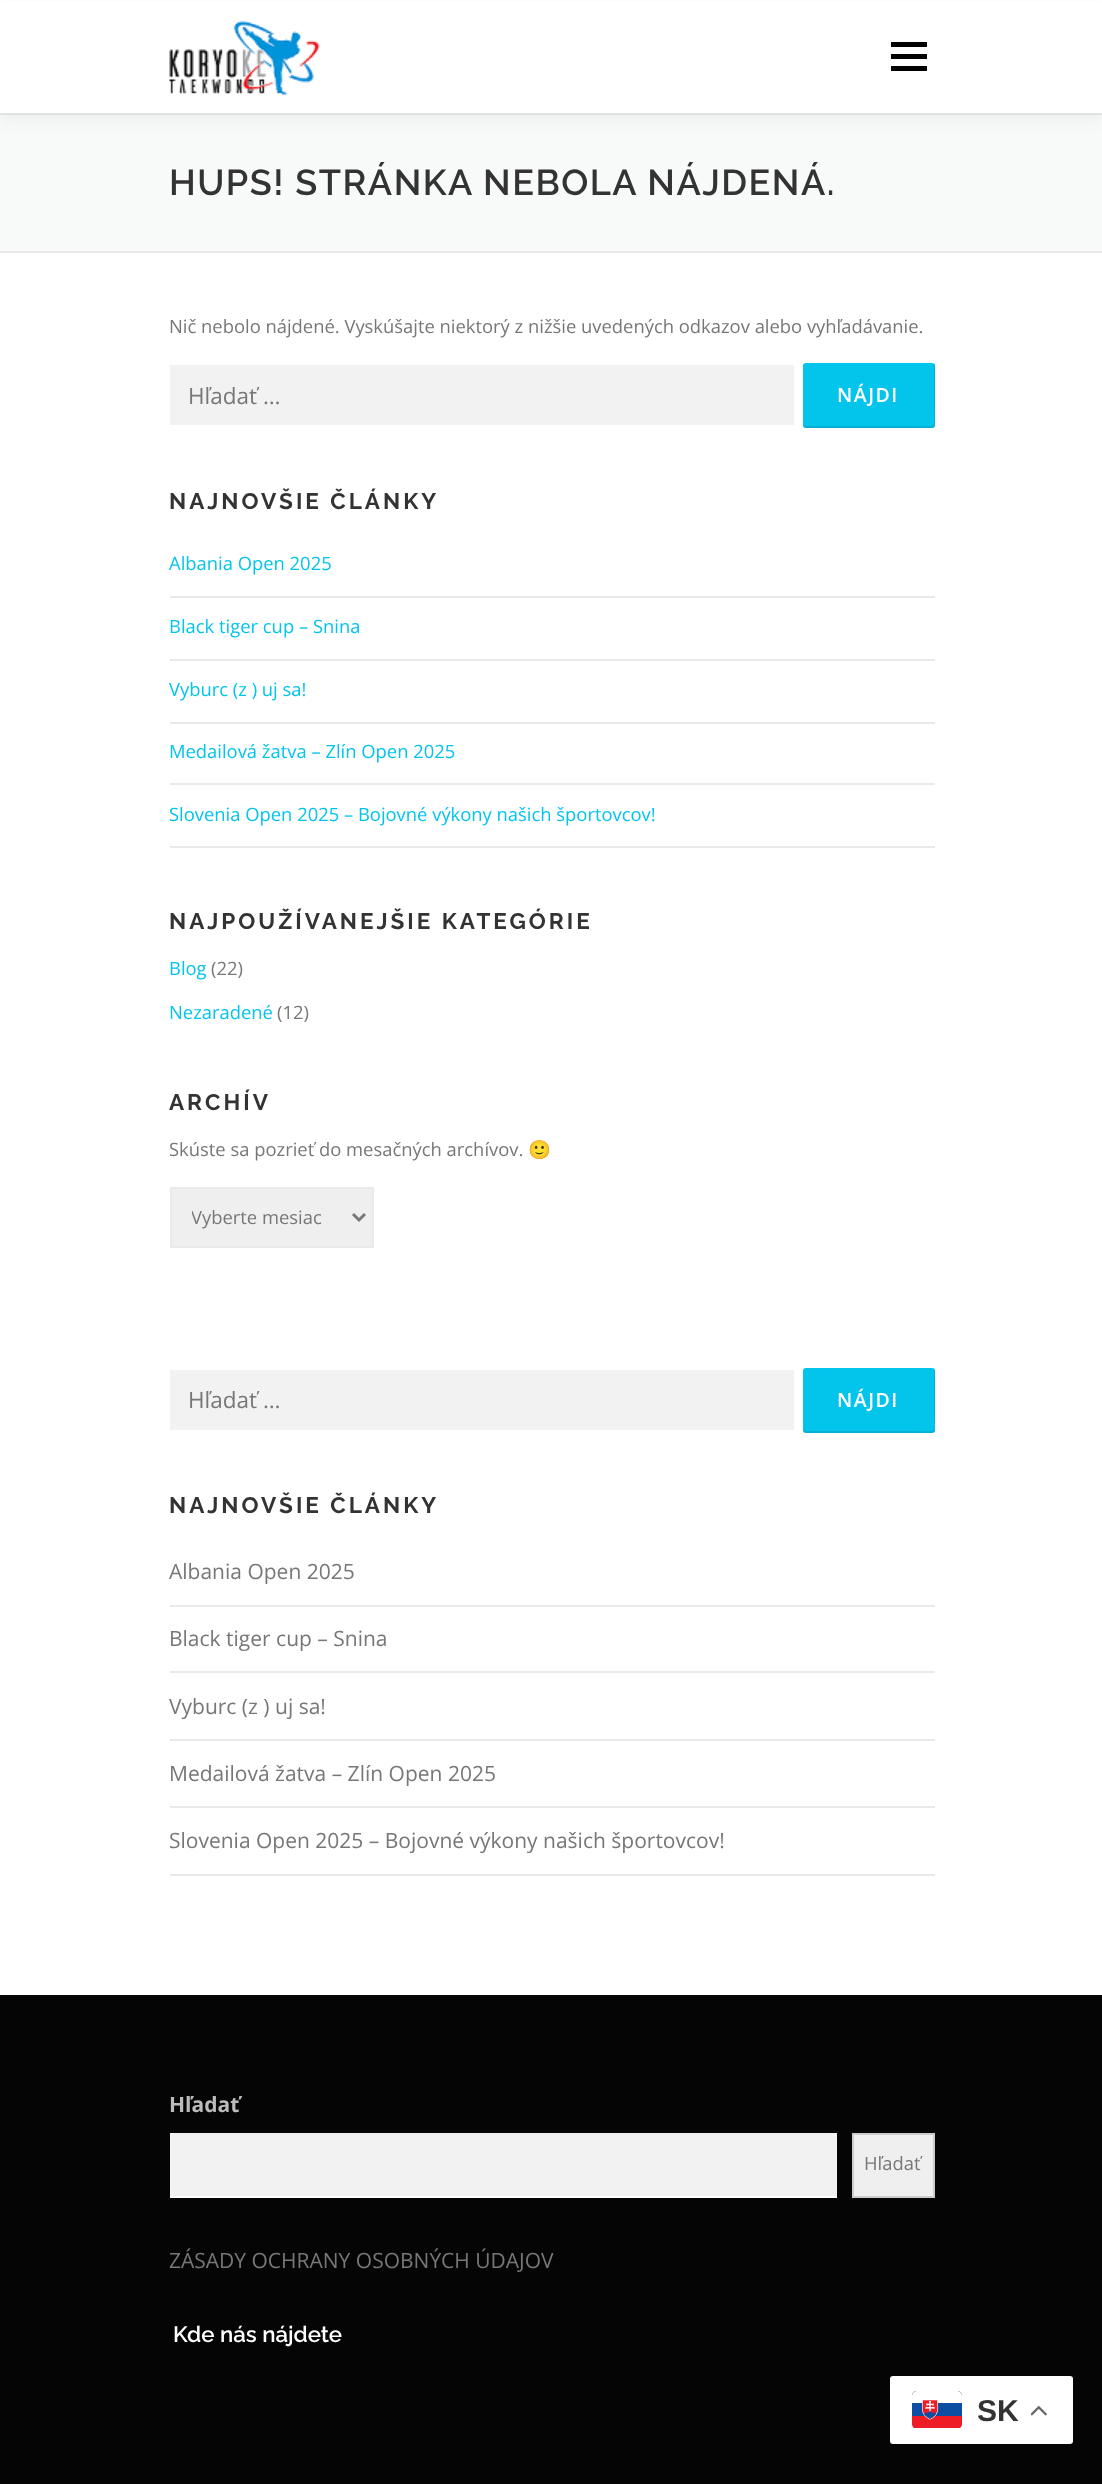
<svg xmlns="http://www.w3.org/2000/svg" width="1102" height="2484">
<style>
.a{font:600 36px Raleway;letter-spacing:1.5px;fill:#333}
.b{font:18.4px Open Sans;fill:#777}
.c{font:22.5px Open Sans;fill:#777}
.d{font:600 19.5px Open Sans;letter-spacing:1.5px;fill:#fff}
.e{font:bold 22.5px Raleway;letter-spacing:3px;fill:#333}
.f{font:18.4px Open Sans;fill:#03c4eb}
.g{font:18.4px Noto Color Emoji;fill:#777}
.h{font:21px Open Sans;fill:#777}
.i{font:bold 21px Open Sans;fill:#bbb}
.j{font:600 22.25px Raleway;fill:#fff}
.k{font:bold 30px Liberation Sans;fill:#333}
</style>
<defs>
<clipPath id="clip1"><path d="M192 1203h141v29H192z"/></clipPath>
</defs>
<rect width="100%" height="100%" fill="#fff"/>
<path fill="#f8f9f9" d="M0 115h1102v136H0z"/>
<path fill="#e9e9e9" d="M0 113h1102v2H0z"/>
<path fill="#3232320f" filter="blur(7.5px)" d="M0 8h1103v112H0z"/>
<path fill="#fff" d="M0 2h1102v111H0z"/>
<image href="1.png" x="169" y="20" width="151" height="75"/>
<path fill="#000" d="M891 54h36v5H891z"/>
<path fill="#000" d="M891 42h36v5H891z"/>
<path fill="#000" d="M891 66h36v5H891z"/>
<path fill="#e9e9e9" d="M0 251h1102v2H0z"/>
<path fill="#f2f2f2" d="M170 365h624v60H170z"/>
<rect fill="#03c4eb" x="803" y="363" width="132" height="65" rx="3"/>
<path fill="#0000001a" d="M803 425c0 2 1 3 3 3h126c2 0 3-1 3-3v-59c0-1 0-2-1-2v39c0 28 6 23-23 23h-105z"/>
<path fill="#e9e9e9" d="M170 596h765v2H170z"/>
<path fill="#e9e9e9" d="M170 659h765v2H170z"/>
<path fill="#e9e9e9" d="M170 722h765v2H170z"/>
<path fill="#e9e9e9" d="M170 783h765v2H170z"/>
<path fill="#e9e9e9" d="M170 846h765v2H170z"/>
<path fill="#efefef" stroke="#e9e9e9" stroke-width="2" d="M171 1188h202v59H171z"/>
<path fill="none" stroke="#777" stroke-width="3" d="M353 1214l6 6l6-6"/>
<path fill="#f2f2f2" d="M170 1370h624v60H170z"/>
<rect fill="#03c4eb" x="803" y="1368" width="132" height="65" rx="3"/>
<path fill="#0000001a" d="M803 1430c0 2 1 3 3 3h126c2 0 3-1 3-3v-59c0-1 0-2-1-2v40c0 27 6 22-23 22h-105z"/>
<path fill="#e9e9e9" d="M170 1605h765v2H170z"/>
<path fill="#e9e9e9" d="M170 1671h765v2H170z"/>
<path fill="#e9e9e9" d="M170 1739h765v2H170z"/>
<path fill="#e9e9e9" d="M170 1806h765v2H170z"/>
<path fill="#e9e9e9" d="M170 1874h765v2H170z"/>
<path fill="#050505" d="M0 1995h1102v489H0z"/>
<path fill="#f2f2f2" d="M170 2133h667v63H170z"/>
<path fill="#fff" d="M170 2196h667v2H170z"/>
<path fill="#efefef" stroke="#ccc" stroke-width="2" d="M853 2134h81v63H853z"/>
<rect fill="#fff" x="890" y="2376" width="183" height="68" rx="3"/>
<image href="2.png" x="912" y="2391" width="50" height="37"/>
<image href="3.png" x="1031" y="2405" width="16" height="11"/>
<text class="a" x="169" y="195">HUPS! STRÁNKA NEBOLA NÁJDENÁ.</text>
<text class="b" x="169" y="333">Nič nebolo nájdené. Vyskúšajte niektorý z nižšie uvedených odkazov alebo vyhľadávanie.</text>
<text class="c" x="188" y="404">Hľadať …</text>
<text class="d" x="837" y="402">NÁJDI</text>
<text class="e" x="169" y="509">NAJNOVŠIE ČLÁNKY</text>
<text class="f" x="169" y="570">Albania Open 2025</text>
<text class="f" x="169" y="633">Black tiger cup – Snina</text>
<text class="f" x="169" y="696">Vyburc (z ) uj sa!</text>
<text class="f" x="169" y="758">Medailová žatva – Zlín Open 2025</text>
<text class="f" x="169" y="821">Slovenia Open 2025 – Bojovné výkony našich športovcov!</text>
<text class="e" x="169" y="929">NAJPOUŽÍVANEJŠIE KATEGÓRIE</text>
<text class="f" x="169" y="975">Blog</text>
<text class="b" x="211" y="975">(22)</text>
<text class="f" x="169" y="1019">Nezaradené</text>
<text class="b" x="277" y="1019">(12)</text>
<text class="e" x="169" y="1110">ARCHÍV</text>
<text class="b" x="169" y="1156">Skúste sa pozrieť do mesačných archívov.</text>
<text class="g" x="528" y="1156">🙂</text>
<g clip-path="url(#clip1)">
<text class="b" x="191" y="1224">Vyberte mesiac</text>
</g>
<text class="c" x="188" y="1408">Hľadať …</text>
<text class="d" x="837" y="1407">NÁJDI</text>
<text class="e" x="169" y="1513">NAJNOVŠIE ČLÁNKY</text>
<text class="h" x="169" y="1579">Albania Open 2025</text>
<text class="h" x="169" y="1646">Black tiger cup – Snina</text>
<text class="h" x="169" y="1714">Vyburc (z ) uj sa!</text>
<text class="h" x="169" y="1781">Medailová žatva – Zlín Open 2025</text>
<text class="h" x="169" y="1848">Slovenia Open 2025 – Bojovné výkony našich športovcov!</text>
<text class="i" x="169" y="2112">Hľadať</text>
<text class="b" x="864" y="2170">Hľadať</text>
<text class="h" x="169" y="2268">ZÁSADY OCHRANY OSOBNÝCH ÚDAJOV</text>
<text class="j" x="173" y="2342">Kde nás nájdete</text>
<text class="k" x="977" y="2421">SK</text>
</svg>
